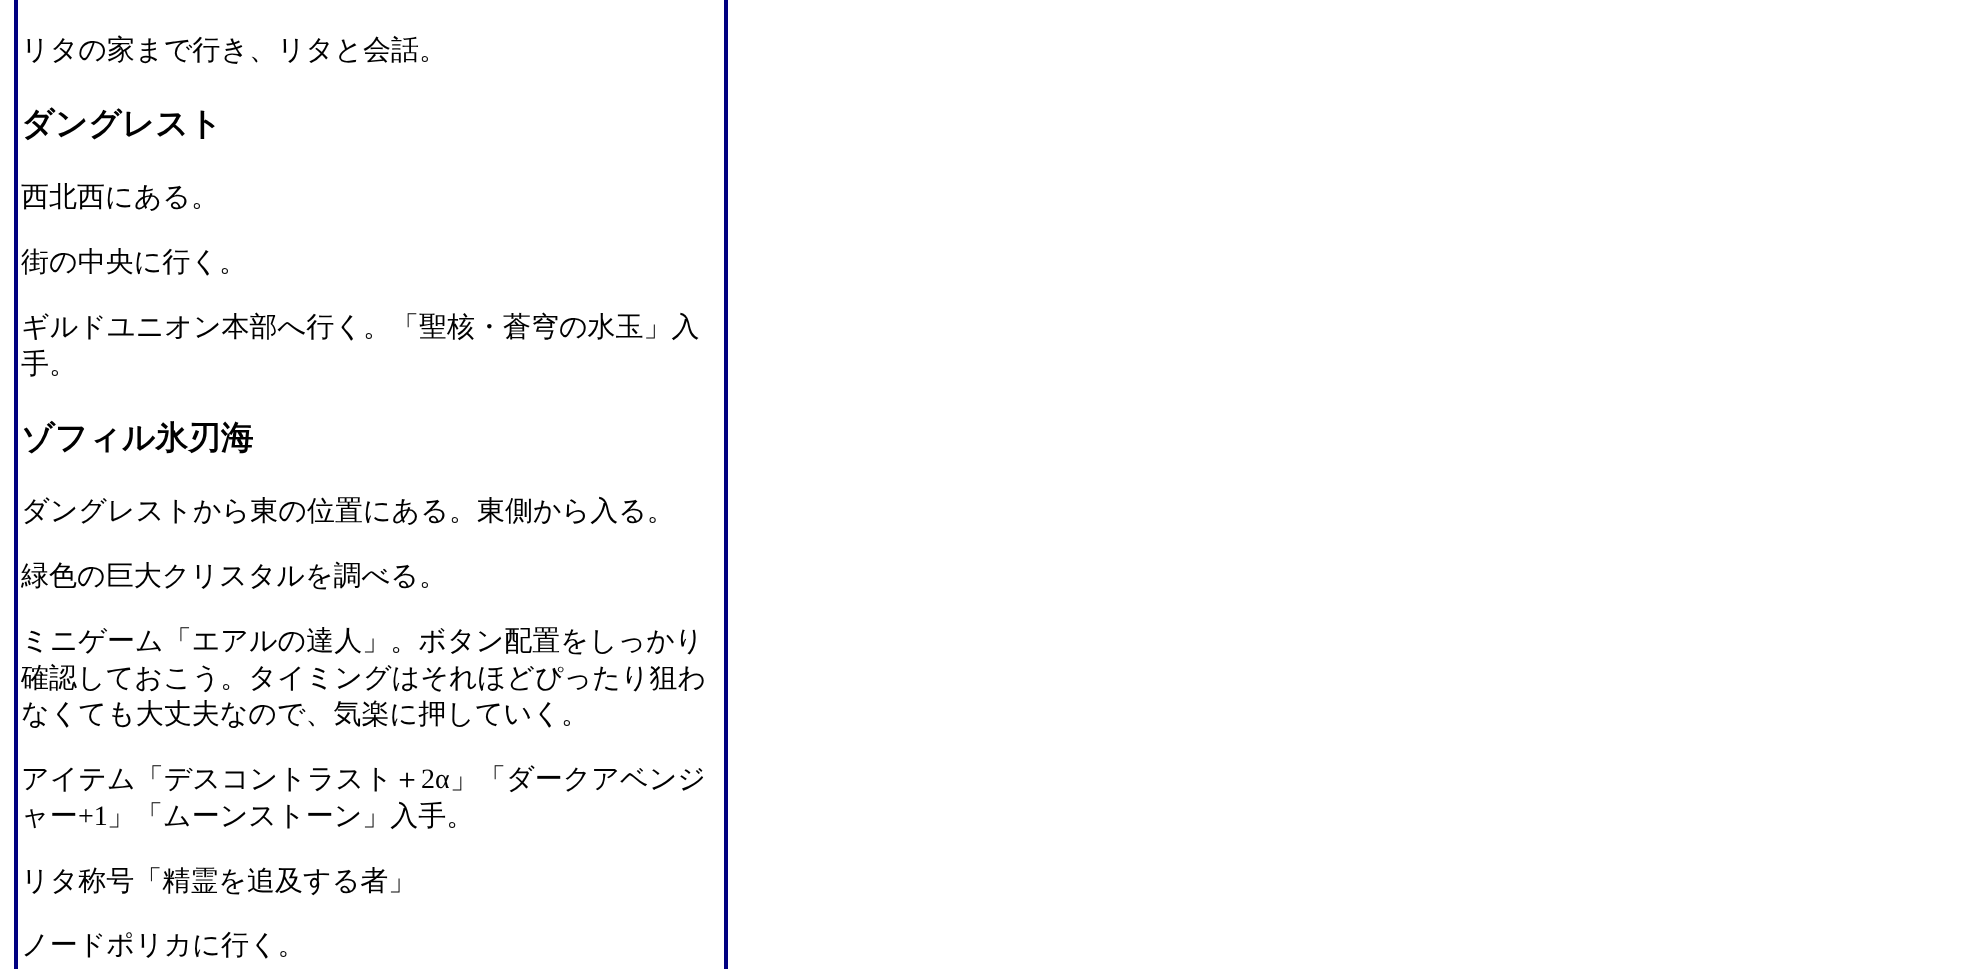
<svg xmlns="http://www.w3.org/2000/svg" width="1962" height="969">
<style>
.a{font:500 28px WenQuanYi Zen Hei;fill:#000}
.b{font:bold 32.75px WenQuanYi Zen Hei;fill:#000}
.c{font:28px Liberation Serif;fill:#000}
</style>
<rect width="100%" height="100%" fill="#fff"/>
<path fill="none" stroke="#000080" stroke-width="4" d="M16 -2h710v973H16z"/>
<text class="a" x="21" y="59">リタの家まで行き、リタと会話。</text>
<text class="b" x="21" y="135">ダングレスト</text>
<text class="a" x="21" y="206">西北西にある。</text>
<text class="a" x="21" y="271">街の中央に行く。</text>
<text class="a" x="21" y="336">ギルドユニオン本部へ行く。「聖核・蒼穹の水玉」入</text>
<text class="a" x="21" y="373">手。</text>
<text class="b" x="21" y="449">ゾフィル氷刃海</text>
<text class="a" x="21" y="520">ダングレストから東の位置にある。東側から入る。</text>
<text class="a" x="21" y="585">緑色の巨大クリスタルを調べる。</text>
<text class="a" x="21" y="650">ミニゲーム「エアルの達人」。ボタン配置をしっかり</text>
<text class="a" x="21" y="687">確認しておこう。タイミングはそれほどぴったり狙わ</text>
<text class="a" x="21" y="723">なくても大丈夫なので、気楽に押していく。</text>
<text class="a" x="21" y="788">アイテム「デスコントラスト＋</text>
<text class="c" x="421" y="788">2α</text>
<text class="a" x="450" y="788">」「ダークアベンジ</text>
<text class="a" x="21" y="825">ャー</text>
<text class="c" x="78" y="825">+1</text>
<text class="a" x="107" y="825">」「ムーンストーン」入手。</text>
<text class="a" x="21" y="890">リタ称号「精霊を追及する者」</text>
<text class="a" x="21" y="954">ノードポリカに行く。</text>
</svg>
